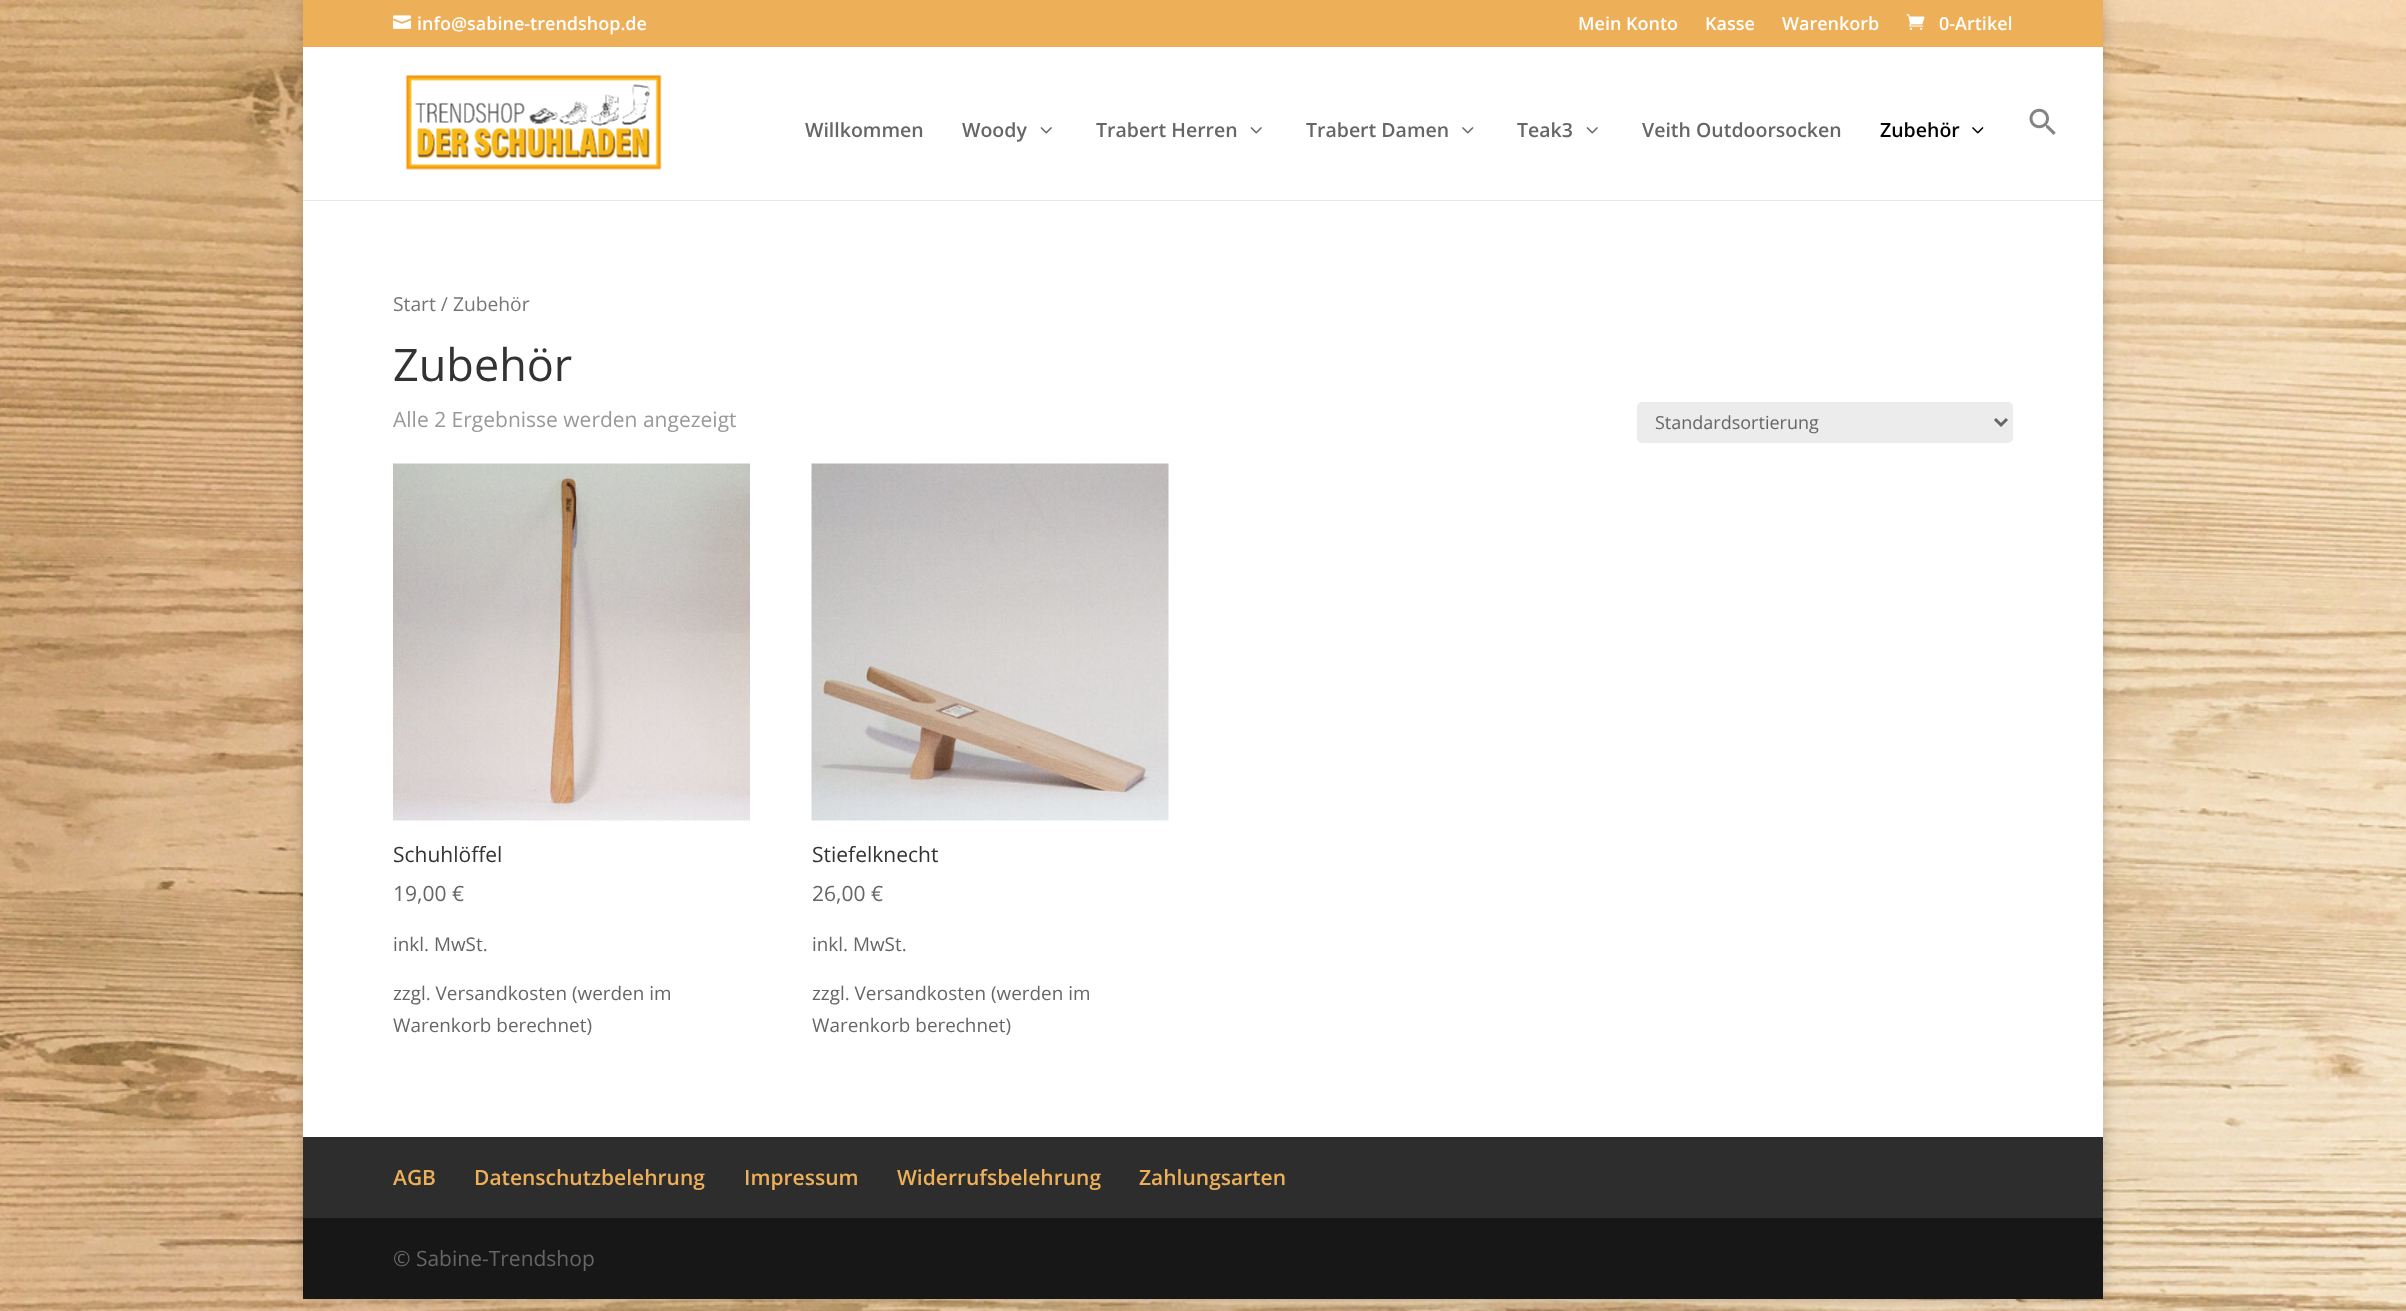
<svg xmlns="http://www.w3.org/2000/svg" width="2406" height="1311">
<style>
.a{font:600 18px Open Sans;fill:#fff}
.b{font:600 19.5px Open Sans;fill:#666}
.c{font:600 19.5px Open Sans;fill:#000}
.d{font:19.25px Open Sans;fill:#767676}
.e{font:45px Open Sans;fill:#333}
.f{font:21px Open Sans;fill:#999}
.g{font:18px Open Sans;fill:#666}
.h{font:21px Open Sans;fill:#333}
.i{font:21px Open Sans;fill:#666}
.j{font:18.9px Open Sans;fill:#666}
.k{font:600 21px Open Sans;fill:#edb059}
</style>
<rect width="100%" height="100%" fill="#fff"/>
<image href="1.png" x="0" y="0" width="2406" height="1311"/>
<path fill="#00000033" filter="blur(7.5px)" d="M303 0h1800v1299H303z"/>
<path fill="#edb059" d="M303 0h1800v47H303z"/>
<image href="2.png" x="393" y="15" width="18" height="14"/>
<image href="3.png" x="1906" y="14" width="19" height="16"/>
<path fill="#e6e6e6" d="M303 200h1800v1H303z"/>
<path fill="#fff" d="M303 47h1800v153H303z"/>
<image href="4.png" x="405" y="74" width="257" height="96"/>
<image href="5.png" x="1040" y="127" width="12" height="7"/>
<image href="5.png" x="1250" y="127" width="12" height="7"/>
<image href="6.png" x="1462" y="127" width="12" height="7"/>
<image href="5.png" x="1586" y="127" width="12" height="7"/>
<image href="7.png" x="1972" y="127" width="12" height="7"/>
<image href="8.png" x="2029" y="108" width="27" height="27"/>
<path fill="#fff" d="M303 201h1800v936H303z"/>
<rect fill="#ececec" x="1637" y="402" width="376" height="41" rx="5"/>
<path fill="none" stroke="#666" stroke-width="3" d="M1995 419l6 6l6-6"/>
<image href="9.png" x="393" y="463" width="357" height="358"/>
<image href="10.png" x="811" y="463" width="358" height="358"/>
<path fill="#2d2d2d" d="M303 1137h1800v81H303z"/>
<path fill="#171717" d="M303 1218h1800v81H303z"/>
<text class="a" x="417" y="30">info@sabine-trendshop.de</text>
<text class="a" x="1578" y="30">Mein Konto</text>
<text class="a" x="1705" y="30">Kasse</text>
<text class="a" x="1782" y="30">Warenkorb</text>
<text class="a" x="1939" y="30">0-Artikel</text>
<text class="b" x="805" y="137">Willkommen</text>
<text class="b" x="962" y="137">Woody</text>
<text class="b" x="1096" y="137">Trabert Herren</text>
<text class="b" x="1306" y="137">Trabert Damen</text>
<text class="b" x="1517" y="137">Teak3</text>
<text class="b" x="1642" y="137">Veith Outdoorsocken</text>
<text class="c" x="1880" y="137">Zubehör</text>
<text class="d" x="393" y="311">Start / Zubehör</text>
<text class="e" x="393" y="381">Zubehör</text>
<text class="f" x="393" y="427">Alle 2 Ergebnisse werden angezeigt</text>
<text class="g" x="1655" y="429">Standardsortierung</text>
<text class="h" x="393" y="862">Schuhlöffel</text>
<text class="i" x="393" y="901">19,00 €</text>
<text class="j" x="393" y="951">inkl. MwSt.</text>
<text class="j" x="393" y="1000">zzgl. Versandkosten (werden im</text>
<text class="j" x="393" y="1032">Warenkorb berechnet)</text>
<text class="h" x="812" y="862">Stiefelknecht</text>
<text class="i" x="812" y="901">26,00 €</text>
<text class="j" x="812" y="951">inkl. MwSt.</text>
<text class="j" x="812" y="1000">zzgl. Versandkosten (werden im</text>
<text class="j" x="812" y="1032">Warenkorb berechnet)</text>
<text class="k" x="393" y="1185">AGB</text>
<text class="k" x="474" y="1185">Datenschutzbelehrung</text>
<text class="k" x="744" y="1185">Impressum</text>
<text class="k" x="897" y="1185">Widerrufsbelehrung</text>
<text class="k" x="1139" y="1185">Zahlungsarten</text>
<text class="i" x="393" y="1266">© Sabine-Trendshop</text>
</svg>
